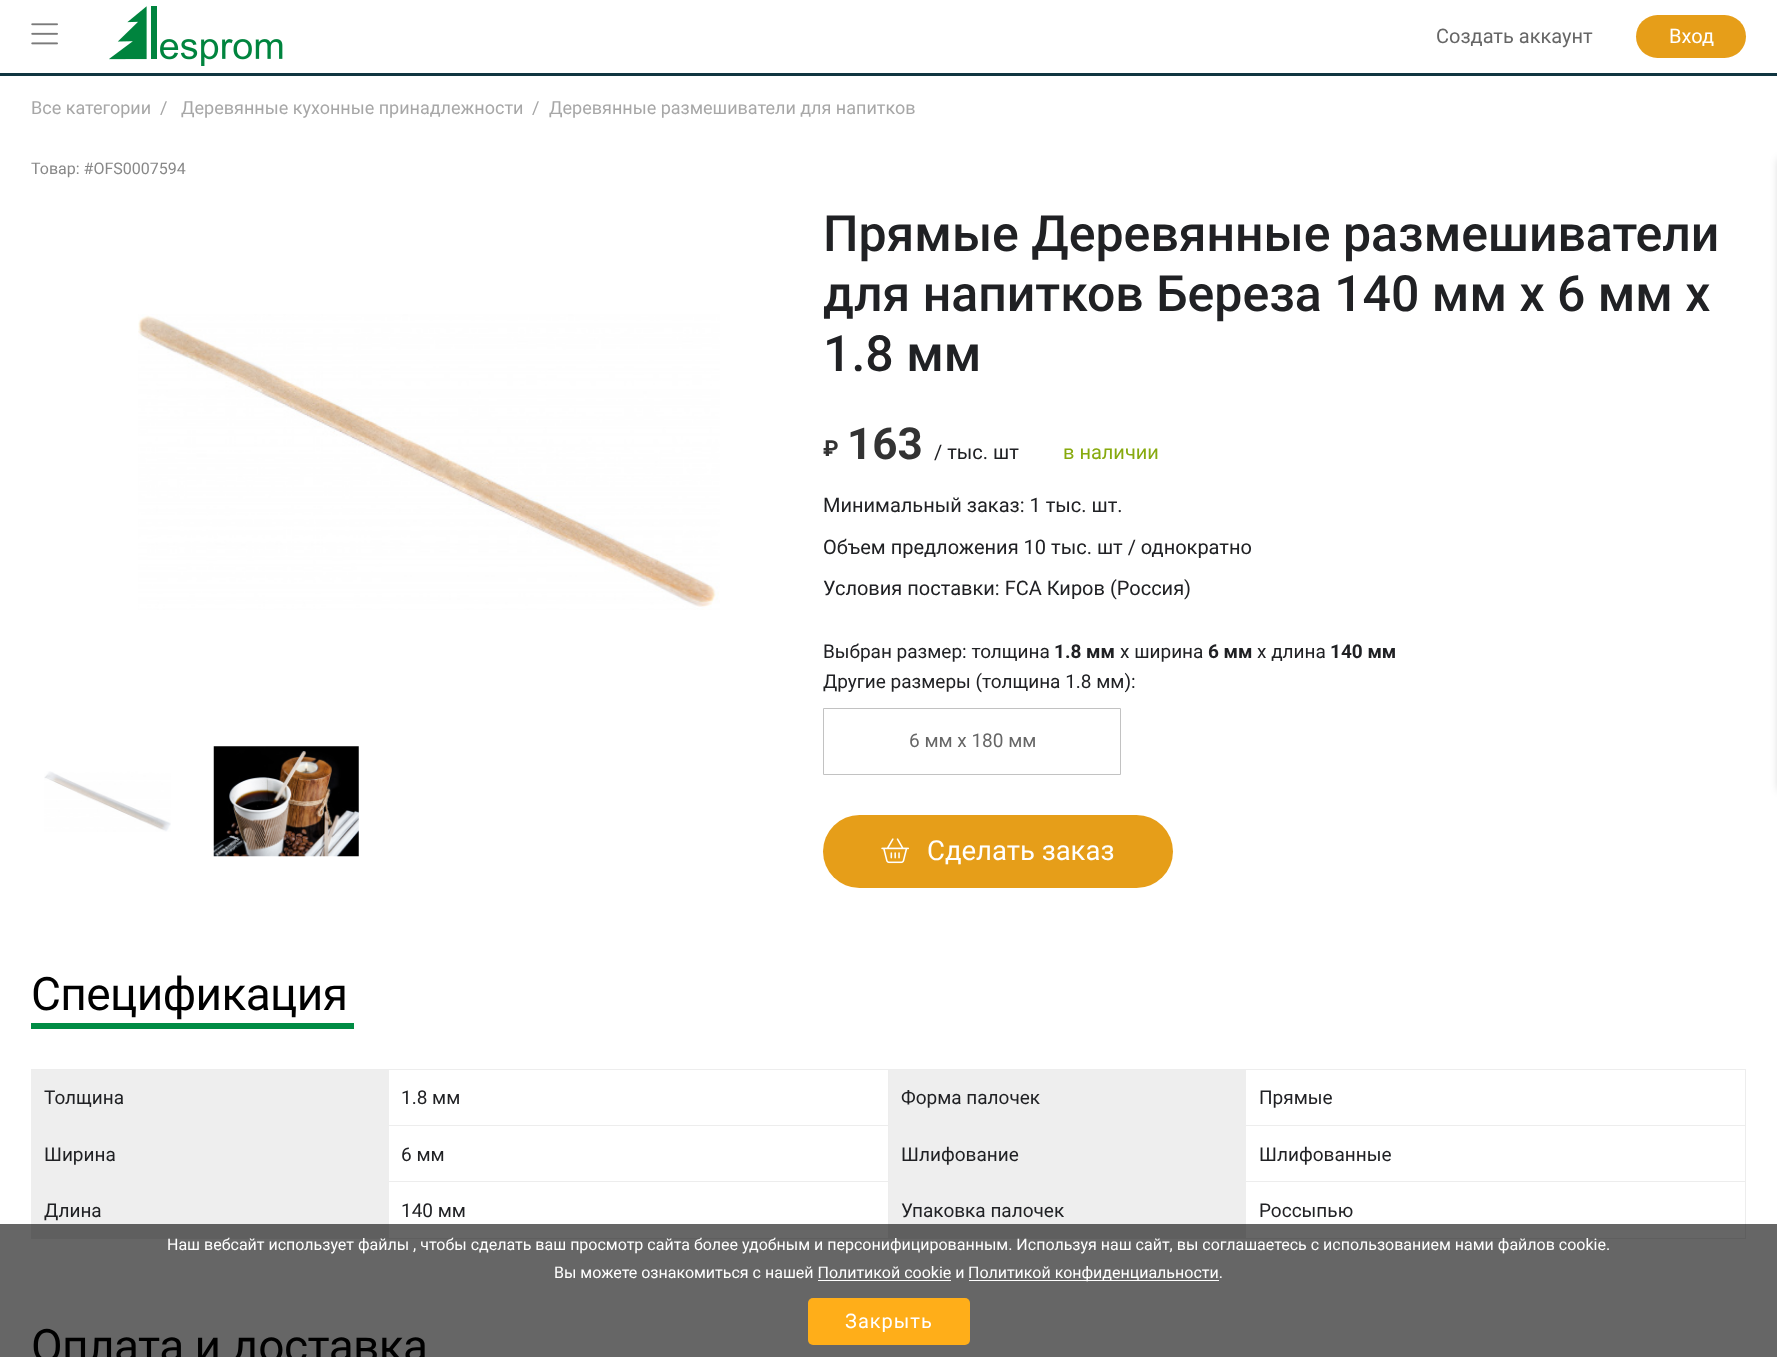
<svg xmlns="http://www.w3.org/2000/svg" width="1777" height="1357">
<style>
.a{font:20px Roboto;fill:#666}
.b{font:20px Roboto;fill:#fff}
.c{font:18px Roboto;fill:#a7a7a7}
.d{font:16px Roboto;fill:#888}
.e{font:500 50px Roboto;fill:#202124}
.f{font:bold 22px Roboto;fill:#333}
.g{font:bold 44px Roboto;fill:#333}
.h{font:20px Roboto;fill:#202124}
.i{font:20px Roboto;fill:#87aa0e}
.j{font:19px Roboto;fill:#202124}
.k{font:bold 19px Roboto;fill:#202124}
.l{font:19px Roboto;fill:#666}
.m{font:27.5px Roboto;fill:#fff}
.n{font:46px Roboto;letter-spacing:-0.6px;fill:#000}
.o{font:16px Roboto;fill:#fff}
.p{font:20px Roboto;letter-spacing:1px;fill:#fff}
</style>
<rect width="100%" height="100%" fill="#fff"/>
<path fill="#666" d="M0 1224h1777v133H0z"/>
<path fill="#103540" d="M0 73h1777v3H0z"/>
<image href="1.png" x="31" y="23" width="27" height="22"/>
<image href="2.png" x="109" y="6" width="174" height="60"/>
<rect fill="#e69e19" x="1636" y="15" width="110" height="43" rx="21.5"/>
<image href="3.png" x="138" y="314" width="582" height="296"/>
<image href="4.png" x="44" y="771" width="127" height="61"/>
<image href="5.png" x="213" y="746" width="146" height="111"/>
<path fill="none" stroke="#c2c2c2" d="M823.5 708.5h297v66H823.5z"/>
<rect fill="#e69e19" x="823" y="815" width="350" height="73" rx="36.5"/>
<image href="6.png" x="881" y="838" width="29" height="26"/>
<path fill="#00000033" filter="blur(4px)" d="M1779 159h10v631H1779z"/>
<path fill="#008c44" d="M31 1023h323v6H31z"/>
<path fill="#ededed" d="M31 1069h1715v1H31z"/>
<path fill="#eee" d="M31 1070h358v154H31z"/>
<path fill="#ededed" d="M888 1070h1v154H888z"/>
<path fill="#ededed" d="M389 1125h500v1H389z"/>
<path fill="#eee" d="M889 1070h357v154H889z"/>
<path fill="#ededed" d="M1745 1070h1v154H1745z"/>
<path fill="#ededed" d="M1246 1125h500v1H1246z"/>
<path fill="#ededed" d="M389 1181h500v1H389z"/>
<path fill="#ededed" d="M1246 1181h500v1H1246z"/>
<path fill="#5f5f5f" d="M31 1224h358v15H31z"/>
<path fill="#5f5f5f" d="M888 1224h358v15H888z"/>
<path fill="#5f5f5f" d="M389 1238h500v1H389z"/>
<path fill="#5f5f5f" d="M1745 1224h1v15H1745z"/>
<path fill="#5f5f5f" d="M1246 1238h500v1H1246z"/>
<path fill="#fff" d="M969 1280h250v1H969z"/>
<path fill="#fff" d="M818 1280h133v1H818z"/>
<rect fill="#ffae19" x="808" y="1298" width="162" height="47" rx="5"/>
<text class="a" x="1436" y="43">Создать аккаунт</text>
<text class="b" x="1669" y="43">Вход</text>
<text class="c" x="31" y="114">Все категории</text>
<text class="c" x="160" y="114">/</text>
<text class="c" x="181" y="114">Деревянные кухонные принадлежности</text>
<text class="c" x="532" y="114">/</text>
<text class="c" x="549" y="114">Деревянные размешиватели для напитков</text>
<text class="d" x="31" y="174">Товар: #OFS0007594</text>
<text class="e" x="823" y="251">Прямые Деревянные размешиватели</text>
<text class="e" x="823" y="311">для напитков Береза 140 мм x 6 мм x</text>
<text class="e" x="823" y="371">1.8 мм</text>
<text class="f" x="823" y="456">₽</text>
<text class="g" x="847" y="459">163</text>
<text class="h" x="934" y="459">/ тыс. шт</text>
<text class="i" x="1063" y="459">в наличии</text>
<text class="h" x="823" y="512">Минимальный заказ: 1 тыс. шт.</text>
<text class="h" x="823" y="554">Объем предложения 10 тыс. шт / однократно</text>
<text class="h" x="823" y="595">Условия поставки: FCA Киров (Россия)</text>
<text class="j" x="823" y="658">Выбран размер: толщина</text>
<text class="k" x="1054" y="658">1.8 мм</text>
<text class="j" x="1120" y="658">x ширина</text>
<text class="k" x="1208" y="658">6 мм</text>
<text class="j" x="1257" y="658">x длина</text>
<text class="k" x="1330" y="658">140 мм</text>
<text class="j" x="823" y="688">Другие размеры (толщина 1.8 мм):</text>
<text class="l" x="909" y="747">6 мм x 180 мм</text>
<text class="m" x="927" y="860">Сделать заказ</text>
<text class="n" x="31" y="1010">Спецификация</text>
<text class="j" x="44" y="1104">Толщина</text>
<text class="j" x="401" y="1104">1.8 мм</text>
<text class="j" x="901" y="1104">Форма палочек</text>
<text class="j" x="1259" y="1104">Прямые</text>
<text class="j" x="44" y="1161">Ширина</text>
<text class="j" x="401" y="1161">6 мм</text>
<text class="j" x="901" y="1161">Шлифование</text>
<text class="j" x="1259" y="1161">Шлифованные</text>
<text class="j" x="44" y="1217">Длина</text>
<text class="j" x="401" y="1217">140 мм</text>
<text class="j" x="901" y="1217">Упаковка палочек</text>
<text class="j" x="1259" y="1217">Россыпью</text>
<text class="n" x="31" y="1362">Оплата и доставка</text>
<text class="o" x="167" y="1250">Наш вебсайт использует файлы , чтобы сделать ваш просмотр сайта более удобным и персонифицированным. Используя наш сайт, вы соглашаетесь с использованием нами файлов cookie.</text>
<text class="o" x="554" y="1278">Вы можете ознакомиться с нашей Политикой сookie и</text>
<text class="o" x="968" y="1278">Политикой конфиденциальности.</text>
<text class="p" x="845" y="1328">Закрыть</text>
</svg>
